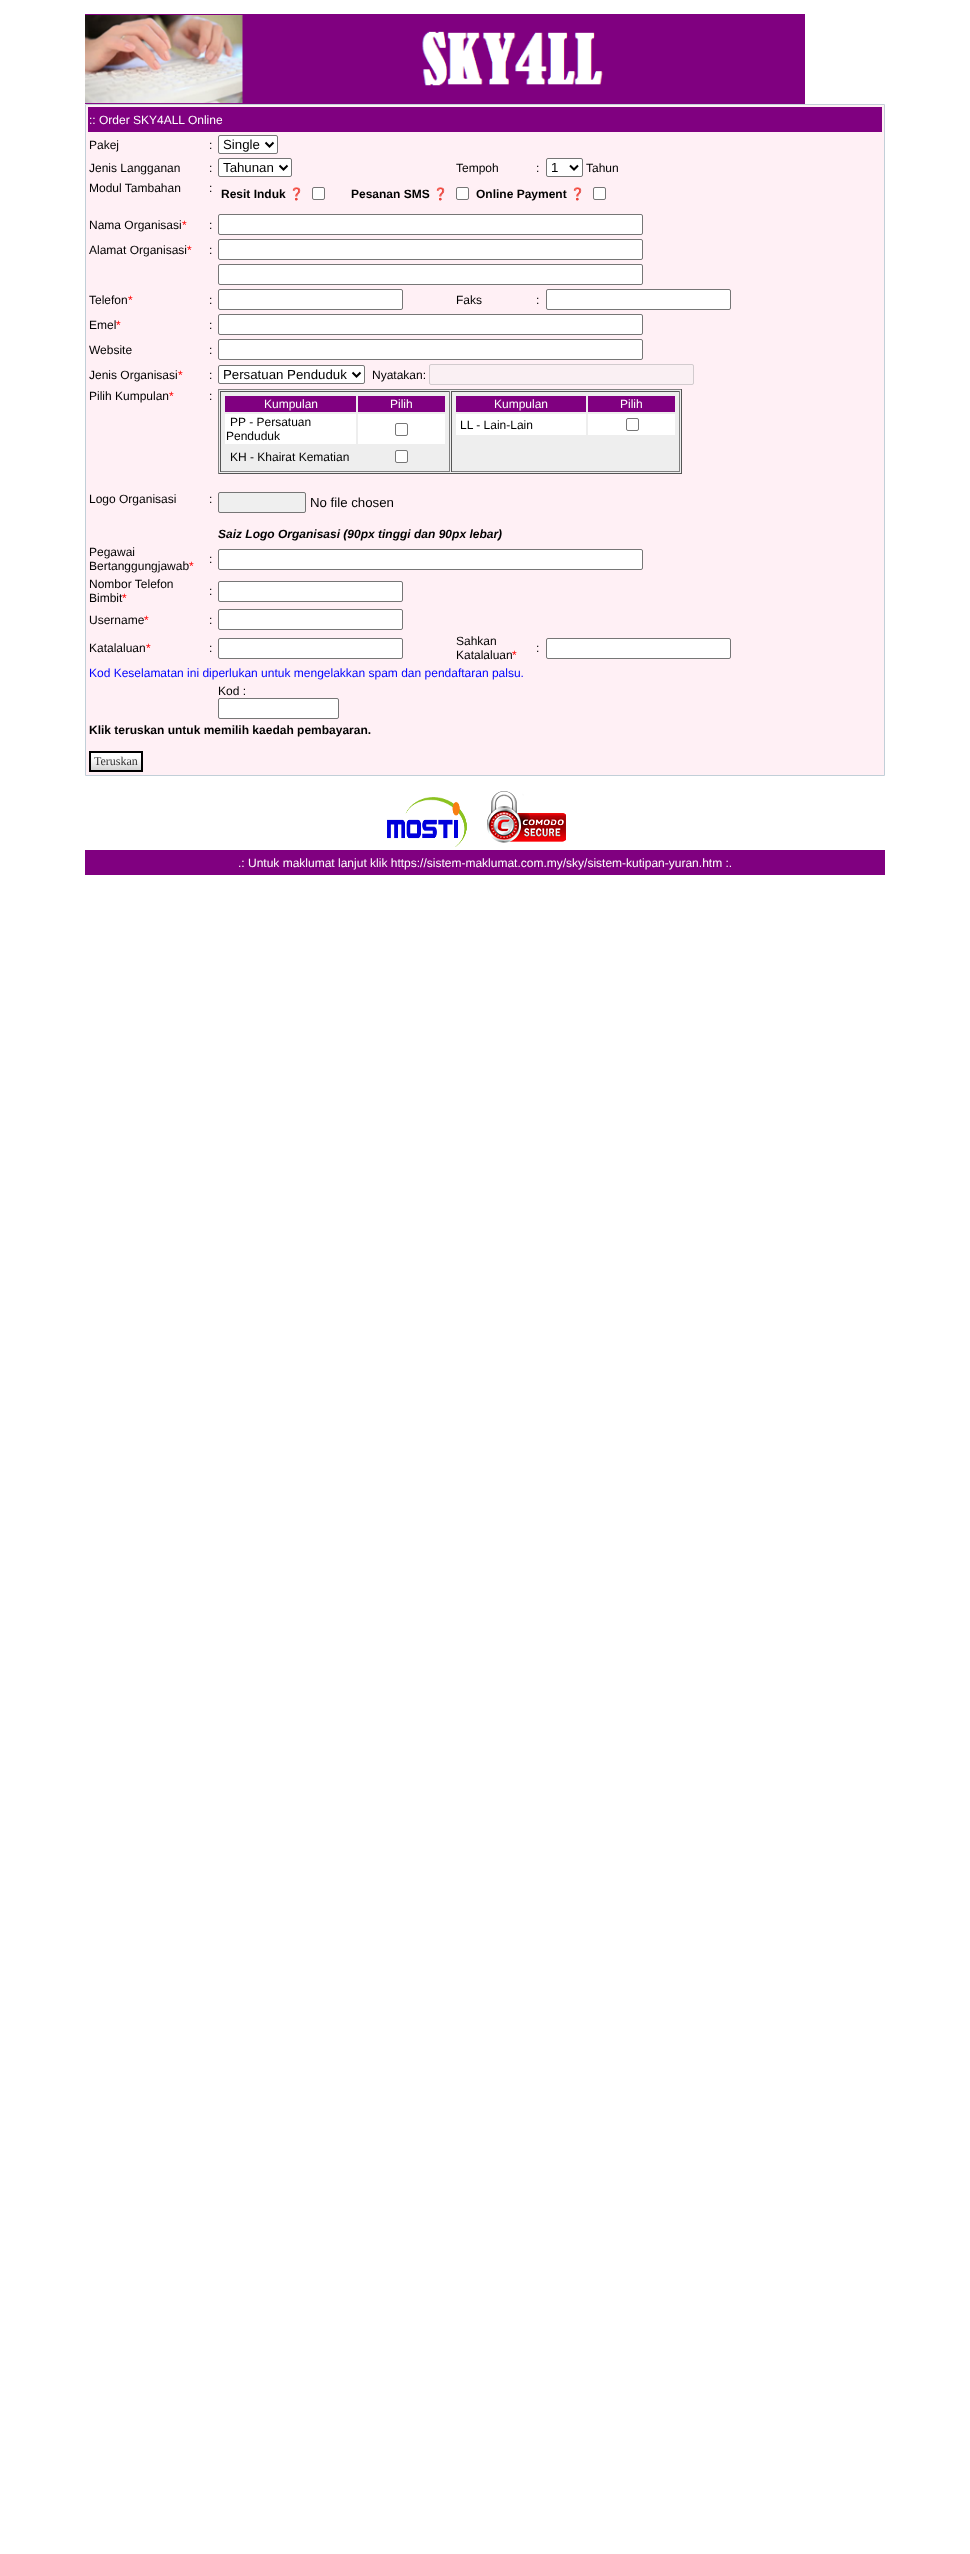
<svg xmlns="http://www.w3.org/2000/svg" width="970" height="2554">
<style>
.a{font:12px Liberation Sans;fill:#fff}
.b{font:12px Liberation Sans;fill:#000}
.c{font:13.25px Liberation Sans;fill:#000}
.d{font:bold 12px Liberation Sans;fill:#000}
.e{font:12px Noto Color Emoji;fill:#007bff}
.f{font:12px Liberation Sans;fill:#f00}
.g{font:italic bold 12px Liberation Sans;fill:#000}
.h{font:12px Liberation Sans;fill:#00f}
.i{font:12px Liberation Serif;fill:#333}
</style>
<rect width="100%" height="100%" fill="#fff"/>
<image href="1.png" x="85" y="14" width="720" height="90"/>
<path fill="#fff0f5" stroke="#c2cfd8" d="M85.5 104.5h799v671H85.5z"/>
<path fill="#800080" d="M88 107h794v25H88z"/>
<rect fill="#fff" stroke="#767676" x="218.5" y="135.5" width="59" height="18" rx="1.5"/>
<path fill="none" stroke="#000" stroke-width="2" d="M265.5 142.5l4 4l4-4"/>
<rect fill="#fff" stroke="#767676" x="218.5" y="158.5" width="73" height="18" rx="1.5"/>
<path fill="none" stroke="#000" stroke-width="2" d="M279.5 165.5l4 4l4-4"/>
<rect fill="#fff" stroke="#767676" x="546.5" y="158.5" width="36" height="18" rx="1.5"/>
<path fill="none" stroke="#000" stroke-width="2" d="M570 165.5l4 4l4-4"/>
<rect fill="#fff" stroke="#767676" x="312.5" y="187.5" width="12" height="12" rx="1.5"/>
<rect fill="#fff" stroke="#767676" x="456.5" y="187.5" width="12" height="12" rx="1.5"/>
<rect fill="#fff" stroke="#767676" x="593.5" y="187.5" width="12" height="12" rx="1.5"/>
<rect fill="#fff" stroke="#767676" x="218.5" y="214.5" width="424" height="20" rx="1.5"/>
<rect fill="#fff" stroke="#767676" x="218.5" y="239.5" width="424" height="20" rx="1.5"/>
<rect fill="#fff" stroke="#767676" x="218.5" y="264.5" width="424" height="20" rx="1.5"/>
<rect fill="#fff" stroke="#767676" x="218.5" y="289.5" width="184" height="20" rx="1.5"/>
<rect fill="#fff" stroke="#767676" x="546.5" y="289.5" width="184" height="20" rx="1.5"/>
<rect fill="#fff" stroke="#767676" x="218.5" y="314.5" width="424" height="20" rx="1.5"/>
<rect fill="#fff" stroke="#767676" x="218.5" y="339.5" width="424" height="20" rx="1.5"/>
<rect fill="#fff" stroke="#767676" x="218.5" y="365.5" width="146" height="18" rx="1.5"/>
<path fill="none" stroke="#000" stroke-width="2" d="M352.5 372.5l4 4l4-4"/>
<rect fill="#faf0f3" stroke="#d2cbce" x="429.5" y="364.5" width="264" height="20" rx="1.5"/>
<path fill="#eee" d="M219 390h462v83H219z"/>
<path fill="#808080" d="M218 389h464v1H218z"/>
<path fill="#555" d="M681 389h1v85H681z"/>
<path fill="#555" d="M218 473h464v1H218z"/>
<path fill="#808080" d="M218 389h1v85H218z"/>
<path fill="#555" d="M220 391h230v1H220z"/>
<path fill="#808080" d="M449 391h1v81H449z"/>
<path fill="#808080" d="M220 471h230v1H220z"/>
<path fill="#555" d="M220 391h1v81H220z"/>
<path fill="#800080" d="M225 396h131v16H225z"/>
<path fill="#800080" d="M358 396h87v16H358z"/>
<path fill="#fff" d="M225 414h131v30H225z"/>
<path fill="#fff" d="M358 414h87v30H358z"/>
<rect fill="none" stroke="#767676" x="395.5" y="423.5" width="12" height="12" rx="1.5"/>
<rect fill="#fff" stroke="#767676" x="395.5" y="450.5" width="12" height="12" rx="1.5"/>
<path fill="#555" d="M451 391h229v1H451z"/>
<path fill="#808080" d="M679 391h1v81H679z"/>
<path fill="#808080" d="M451 471h229v1H451z"/>
<path fill="#555" d="M451 391h1v81H451z"/>
<path fill="#800080" d="M456 396h130v16H456z"/>
<path fill="#800080" d="M588 396h87v16H588z"/>
<path fill="#fff" d="M456 414h130v21H456z"/>
<path fill="#fff" d="M588 414h87v21H588z"/>
<rect fill="none" stroke="#767676" x="626.5" y="418.5" width="12" height="12" rx="1.5"/>
<rect fill="#efefef" stroke="#767676" x="218.5" y="492.5" width="87" height="20" rx="1.5"/>
<rect fill="#fff" stroke="#767676" x="218.5" y="549.5" width="424" height="20" rx="1.5"/>
<rect fill="#fff" stroke="#767676" x="218.5" y="581.5" width="184" height="20" rx="1.5"/>
<rect fill="#fff" stroke="#767676" x="218.5" y="609.5" width="184" height="20" rx="1.5"/>
<rect fill="#fff" stroke="#767676" x="218.5" y="638.5" width="184" height="20" rx="1.5"/>
<rect fill="#fff" stroke="#767676" x="546.5" y="638.5" width="184" height="20" rx="1.5"/>
<rect fill="#fff" stroke="#767676" x="218.5" y="698.5" width="120" height="20" rx="1.5"/>
<image href="2.png" x="91" y="753" width="50" height="17"/>
<path fill="none" stroke="#000" stroke-width="2" d="M90 752h52v19H90z"/>
<image href="3.png" x="387" y="797" width="80" height="50"/>
<image href="4.png" x="487" y="791" width="79" height="52"/>
<path fill="#800080" d="M85 850h800v25H85z"/>
<text class="a" x="89" y="124">:: Order SKY4ALL Online</text>
<text class="b" x="89" y="149">Pakej</text>
<text class="b" x="209" y="149">:</text>
<text class="c" x="223" y="149">Single</text>
<text class="b" x="89" y="172">Jenis Langganan</text>
<text class="b" x="209" y="172">:</text>
<text class="c" x="223" y="172">Tahunan</text>
<text class="b" x="456" y="172">Tempoh</text>
<text class="b" x="536" y="172">:</text>
<text class="c" x="551" y="172">1</text>
<text class="b" x="586" y="172">Tahun</text>
<text class="b" x="89" y="192">Modul Tambahan</text>
<text class="b" x="209" y="192">:</text>
<text class="d" x="221" y="198">Resit Induk</text>
<text class="e" x="289" y="198">❓</text>
<text class="d" x="351" y="198">Pesanan SMS</text>
<text class="e" x="433" y="198">❓</text>
<text class="d" x="476" y="198">Online Payment</text>
<text class="e" x="570" y="198">❓</text>
<text class="b" x="89" y="229">Nama Organisasi</text>
<text class="f" x="182" y="229">*</text>
<text class="b" x="209" y="229">:</text>
<text class="b" x="89" y="254">Alamat Organisasi</text>
<text class="f" x="187" y="254">*</text>
<text class="b" x="209" y="254">:</text>
<text class="b" x="89" y="304">Telefon</text>
<text class="f" x="128" y="304">*</text>
<text class="b" x="209" y="304">:</text>
<text class="b" x="456" y="304">Faks</text>
<text class="b" x="536" y="304">:</text>
<text class="b" x="89" y="329">Emel</text>
<text class="f" x="116" y="329">*</text>
<text class="b" x="209" y="329">:</text>
<text class="b" x="89" y="354">Website</text>
<text class="b" x="209" y="354">:</text>
<text class="b" x="89" y="379">Jenis Organisasi</text>
<text class="f" x="178" y="379">*</text>
<text class="b" x="209" y="379">:</text>
<text class="c" x="223" y="379">Persatuan Penduduk</text>
<text class="b" x="372" y="379">Nyatakan:</text>
<text class="b" x="89" y="400">Pilih Kumpulan</text>
<text class="f" x="169" y="400">*</text>
<text class="b" x="209" y="400">:</text>
<text class="a" x="264" y="408">Kumpulan</text>
<text class="a" x="390" y="408">Pilih</text>
<text class="b" x="230" y="426">PP - Persatuan</text>
<text class="b" x="226" y="440">Penduduk</text>
<text class="b" x="230" y="461">KH - Khairat Kematian</text>
<text class="a" x="494" y="408">Kumpulan</text>
<text class="a" x="620" y="408">Pilih</text>
<text class="b" x="460" y="429">LL - Lain-Lain</text>
<text class="b" x="89" y="503">Logo Organisasi</text>
<text class="b" x="209" y="503">:</text>
<text class="c" x="310" y="507">No file chosen</text>
<text class="g" x="218" y="538">Saiz Logo Organisasi (90px tinggi dan 90px lebar)</text>
<text class="b" x="89" y="556">Pegawai</text>
<text class="b" x="89" y="570">Bertanggungjawab</text>
<text class="f" x="189" y="570">*</text>
<text class="b" x="209" y="563">:</text>
<text class="b" x="89" y="588">Nombor Telefon</text>
<text class="b" x="89" y="602">Bimbit</text>
<text class="f" x="122" y="602">*</text>
<text class="b" x="209" y="595">:</text>
<text class="b" x="89" y="624">Username</text>
<text class="f" x="144" y="624">*</text>
<text class="b" x="209" y="624">:</text>
<text class="b" x="89" y="652">Katalaluan</text>
<text class="f" x="146" y="652">*</text>
<text class="b" x="209" y="652">:</text>
<text class="b" x="456" y="645">Sahkan</text>
<text class="b" x="456" y="659">Katalaluan</text>
<text class="f" x="512" y="659">*</text>
<text class="b" x="536" y="652">:</text>
<text class="h" x="89" y="677">Kod Keselamatan ini diperlukan untuk mengelakkan spam dan pendaftaran palsu.</text>
<text class="b" x="218" y="695">Kod :</text>
<text class="d" x="89" y="734">Klik teruskan untuk memilih kaedah pembayaran.</text>
<text class="i" x="94" y="765">Teruskan</text>
<text class="a" x="238" y="867">.: Untuk maklumat lanjut klik https://sistem-maklumat.com.my/sky/sistem-kutipan-yuran.htm :.</text>
</svg>
